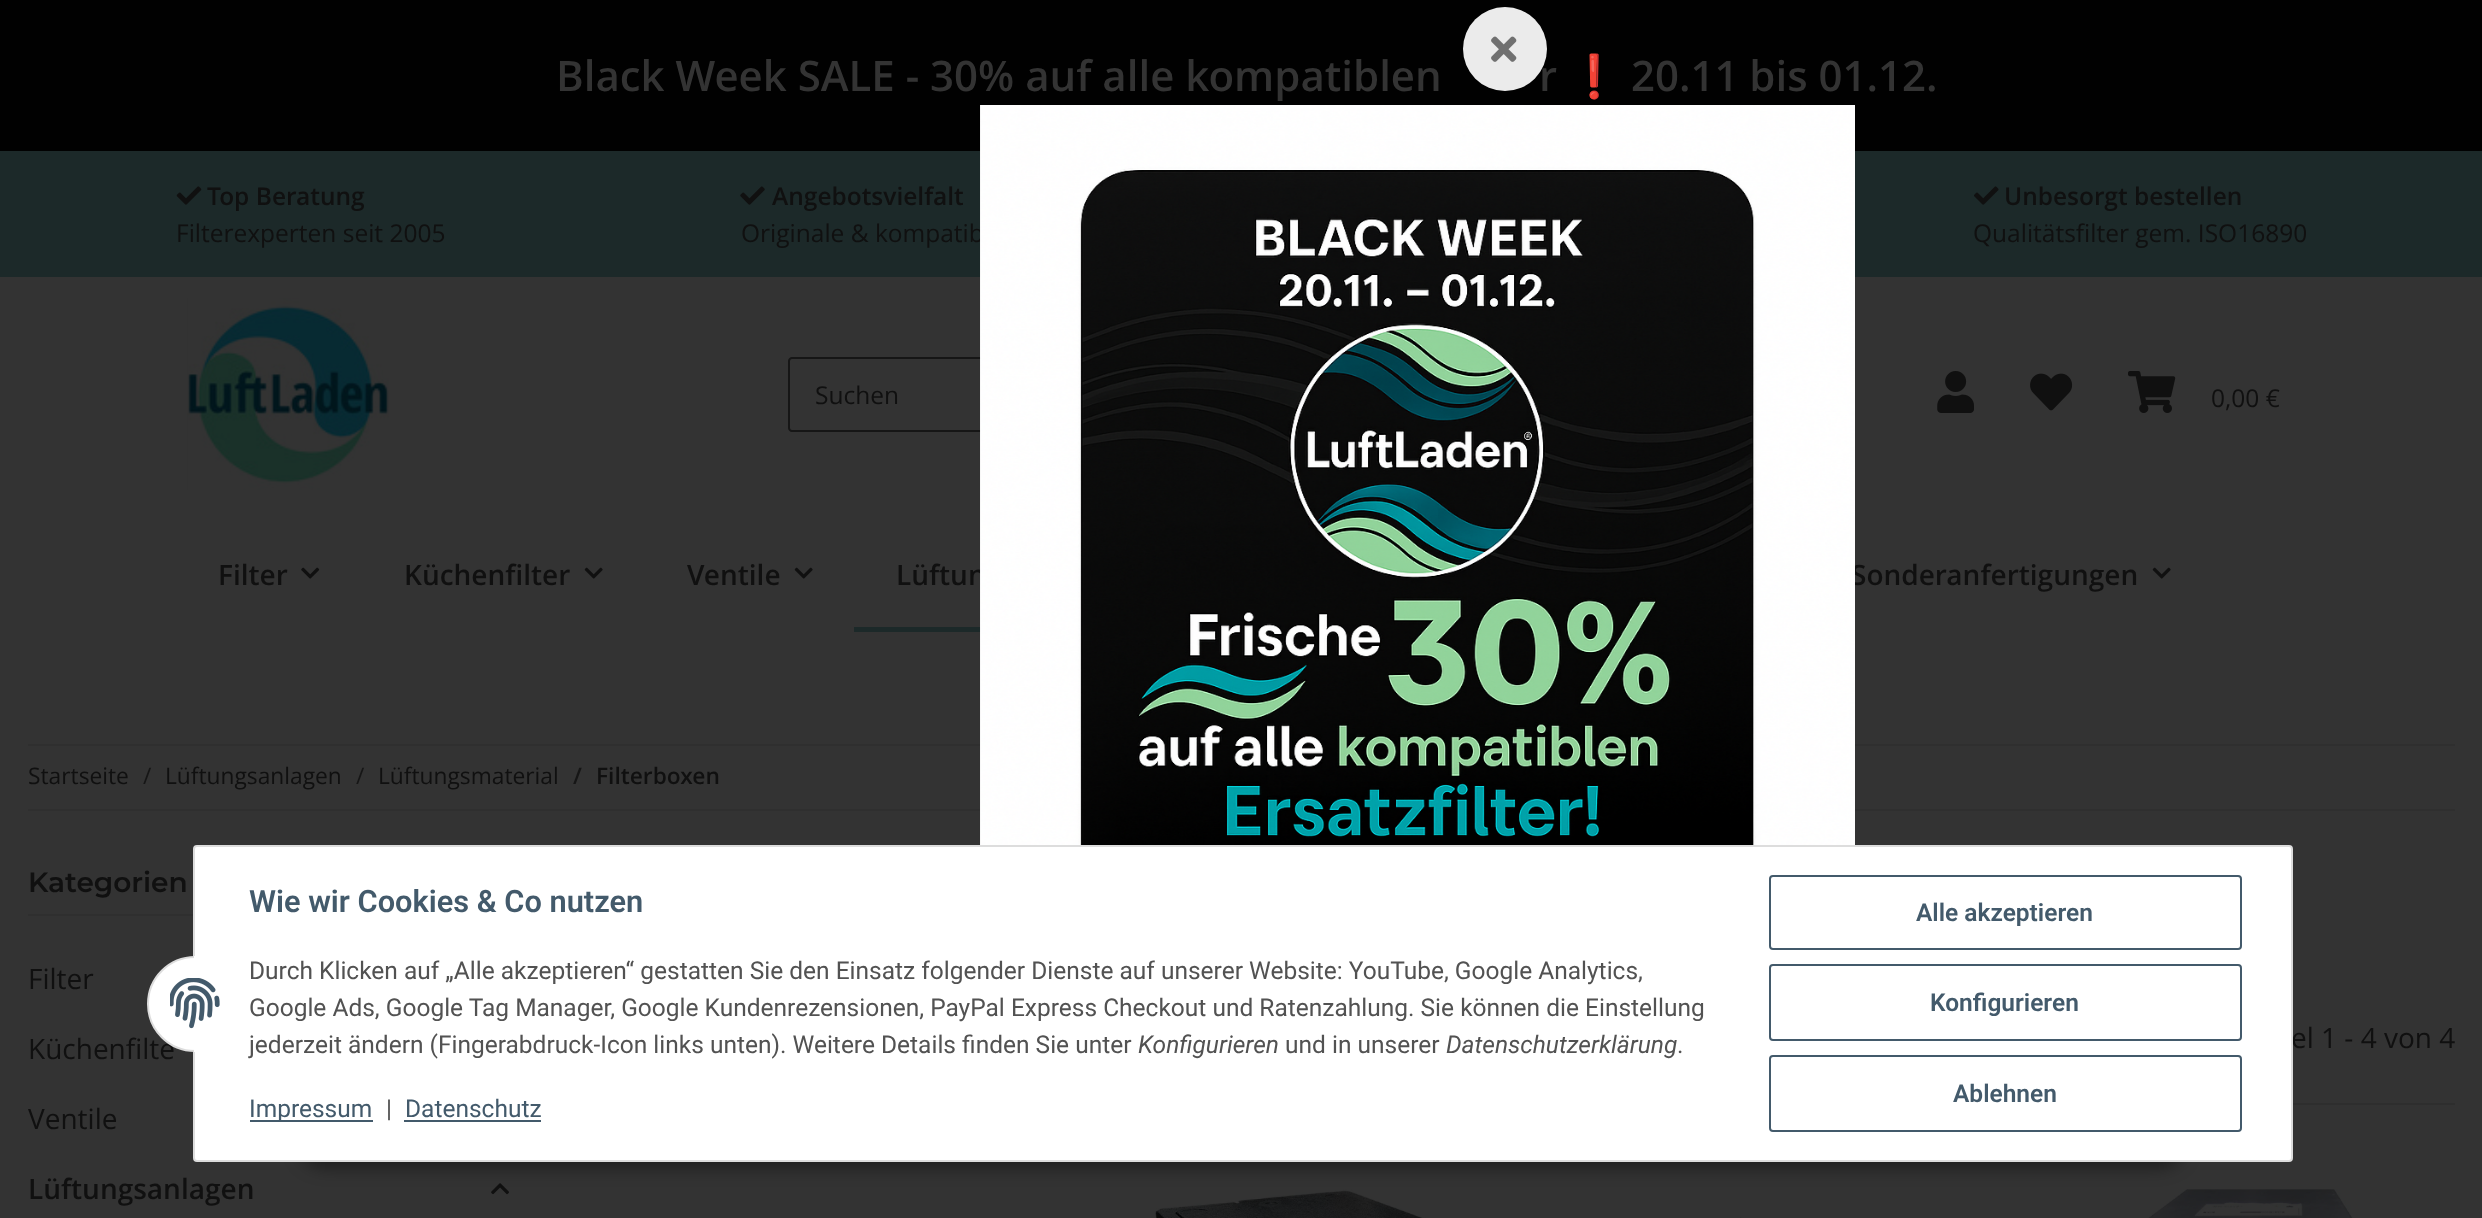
<svg xmlns="http://www.w3.org/2000/svg" width="2482" height="1218">
<style>
.a{font:600 42px Open Sans;fill:#333}
.b{font:bold 42px Noto Color Emoji;fill:#333}
.c{font:600 24.5px Open Sans;fill:#101010}
.d{font:24.5px Open Sans;fill:#101010}
.e{font:600 28px Open Sans;fill:#101010}
.f{font:22.75px Open Sans;fill:#101010}
.g{font:22.75px Open Sans;fill:#161616}
.h{font:600 22.75px Open Sans;fill:#161616}
.i{font:600 22.75px Open Sans;fill:#101010}
.j{font:600 28px Montserrat;fill:#101010}
.k{font:28px Open Sans;fill:#101010}
.l{font:600 30.75px Roboto;fill:#435a6b}
.m{font:24.5px Roboto;fill:#525252}
.n{font:italic 24.5px Roboto;fill:#525252}
.o{font:24.5px Roboto;fill:#435a6b}
.p{font:600 24.5px Roboto;fill:#435a6b}
</style>
<rect width="100%" height="100%" fill="#010101"/>
<path fill="#1c2929" d="M0 151h2482v126H0z"/>
<image href="3.png" x="176" y="186" width="26" height="19"/>
<image href="4.png" x="740" y="186" width="25" height="19"/>
<image href="5.png" x="1974" y="186" width="25" height="19"/>
<path fill="#333" d="M0 277h2482v941H0z"/>
<image href="6.png" x="187" y="298" width="202" height="192"/>
<path fill="none" stroke="#161616" stroke-width="2" d="M792 358h707v73h-707c-1.5 0-3-1.5-3-3v-67c0-1.5 1.5-3 3-3z"/>
<image href="7.png" x="1937" y="371" width="37" height="42"/>
<image href="8.png" x="2030" y="373" width="43" height="38"/>
<image href="9.png" x="2128" y="371" width="48" height="42"/>
<image href="10.png" x="301" y="567" width="19" height="12"/>
<image href="11.png" x="584" y="567" width="19" height="12"/>
<image href="11.png" x="794" y="567" width="19" height="12"/>
<path fill="#1c2929" d="M854 627h127v5H854z"/>
<image href="11.png" x="2152" y="567" width="19" height="12"/>
<path fill="#2f2f2f" d="M28 744h2427v2H28z"/>
<path fill="#2f2f2f" d="M28 809h2427v2H28z"/>
<path fill="#2f2f2f" d="M28 914h165v2H28z"/>
<image href="12.png" x="491" y="1183" width="18" height="12"/>
<path fill="#2e2e2e" d="M2293 1103h162v2H2293z"/>
<image href="13.png" x="1155" y="1189" width="271" height="29"/>
<image href="14.png" x="1740" y="1217" width="2" height="1"/>
<image href="15.png" x="2148" y="1189" width="205" height="29"/>
<rect fill="#00000073" filter="blur(9px)" x="298" y="1111" width="1888" height="56" rx="28"/>
<text class="a" x="556" y="91">Black Week SALE - 30% auf alle kompatiblen</text>
<text class="a" x="1539" y="91">r</text>
<circle fill="#ebebeb" cx="1505" cy="49" r="42"/>
<image href="1.png" x="1491" y="36" width="26" height="26"/>
<text class="b" x="1568" y="91">❗</text>
<text class="a" x="1631" y="91">20.11 bis 01.12.</text>
<text class="c" x="207" y="205">Top Beratung</text>
<text class="d" x="176" y="242">Filterexperten seit 2005</text>
<text class="c" x="772" y="205">Angebotsvielfalt</text>
<text class="d" x="741" y="242">Originale &amp; kompatib</text>
<text class="c" x="2004" y="205">Unbesorgt bestellen</text>
<text class="d" x="1973" y="242">Qualitätsfilter gem. ISO16890</text>
<text class="d" x="815" y="404">Suchen</text>
<text class="d" x="2211" y="407">0,00 €</text>
<text class="e" x="218" y="585">Filter</text>
<text class="e" x="404" y="585">Küchenfilter</text>
<text class="e" x="687" y="585">Ventile</text>
<text class="e" x="896" y="585">Lüftun</text>
<text class="e" x="1851" y="585">Sonderanfertigungen</text>
<image href="2.png" x="980" y="105" width="875" height="740"/>
<text class="f" x="28" y="784">Startseite</text>
<text class="g" x="143" y="784">/</text>
<text class="f" x="165" y="784">Lüftungsanlagen</text>
<text class="g" x="356" y="784">/</text>
<text class="f" x="378" y="784">Lüftungsmaterial</text>
<text class="h" x="573" y="784">/</text>
<text class="i" x="596" y="784">Filterboxen</text>
<text class="j" x="28" y="892">Kategorien</text>
<text class="k" x="28" y="989">Filter</text>
<text class="k" x="28" y="1059">Küchenfilte</text>
<text class="k" x="28" y="1129">Ventile</text>
<text class="e" x="28" y="1199">Lüftungsanlagen</text>
<text class="k" x="2291" y="1048">el 1 - 4 von 4</text>
<rect fill="#fff" stroke="#ddd" stroke-width="2" x="194" y="846" width="2098" height="315" rx="3"/>
<circle fill="#fff" stroke="#ddd" stroke-width="2" cx="195" cy="1004" r="47"/>
<path fill="#fff" d="M194 956h49v96H194z"/>
<image href="16.png" x="170" y="978" width="50" height="51"/>
<text class="l" x="249" y="912">Wie wir Cookies &amp; Co nutzen</text>
<text class="m" x="249" y="979">Durch Klicken auf „Alle akzeptieren“ gestatten Sie den Einsatz folgender Dienste auf unserer Website: YouTube, Google Analytics,</text>
<text class="m" x="249" y="1016">Google Ads, Google Tag Manager, Google Kundenrezensionen, PayPal Express Checkout und Ratenzahlung. Sie können die Einstellung</text>
<text class="m" x="249" y="1053">jederzeit ändern (Fingerabdruck-Icon links unten). Weitere Details finden Sie unter</text>
<text class="n" x="1138" y="1053">Konfigurieren</text>
<text class="m" x="1285" y="1053">und in unserer</text>
<text class="n" x="1446" y="1053">Datenschutzerklärung</text>
<text class="m" x="1677" y="1053">.</text>
<path fill="#435a6b" d="M250 1120h123v2H250z"/>
<text class="o" x="249" y="1117">Impressum</text>
<text class="m" x="386" y="1117">|</text>
<text class="o" x="405" y="1117">Datenschutz</text>
<path fill="#435a6b" d="M404 1120h137v2H404z"/>
<rect fill="none" stroke="#435a6b" stroke-width="2" x="1770" y="876" width="471" height="73" rx="3"/>
<text class="p" x="1916" y="921">Alle akzeptieren</text>
<rect fill="none" stroke="#435a6b" stroke-width="2" x="1770" y="965" width="471" height="75" rx="3"/>
<text class="p" x="1930" y="1011">Konfigurieren</text>
<rect fill="none" stroke="#435a6b" stroke-width="2" x="1770" y="1056" width="471" height="75" rx="3"/>
<text class="p" x="1953" y="1102">Ablehnen</text>
</svg>
